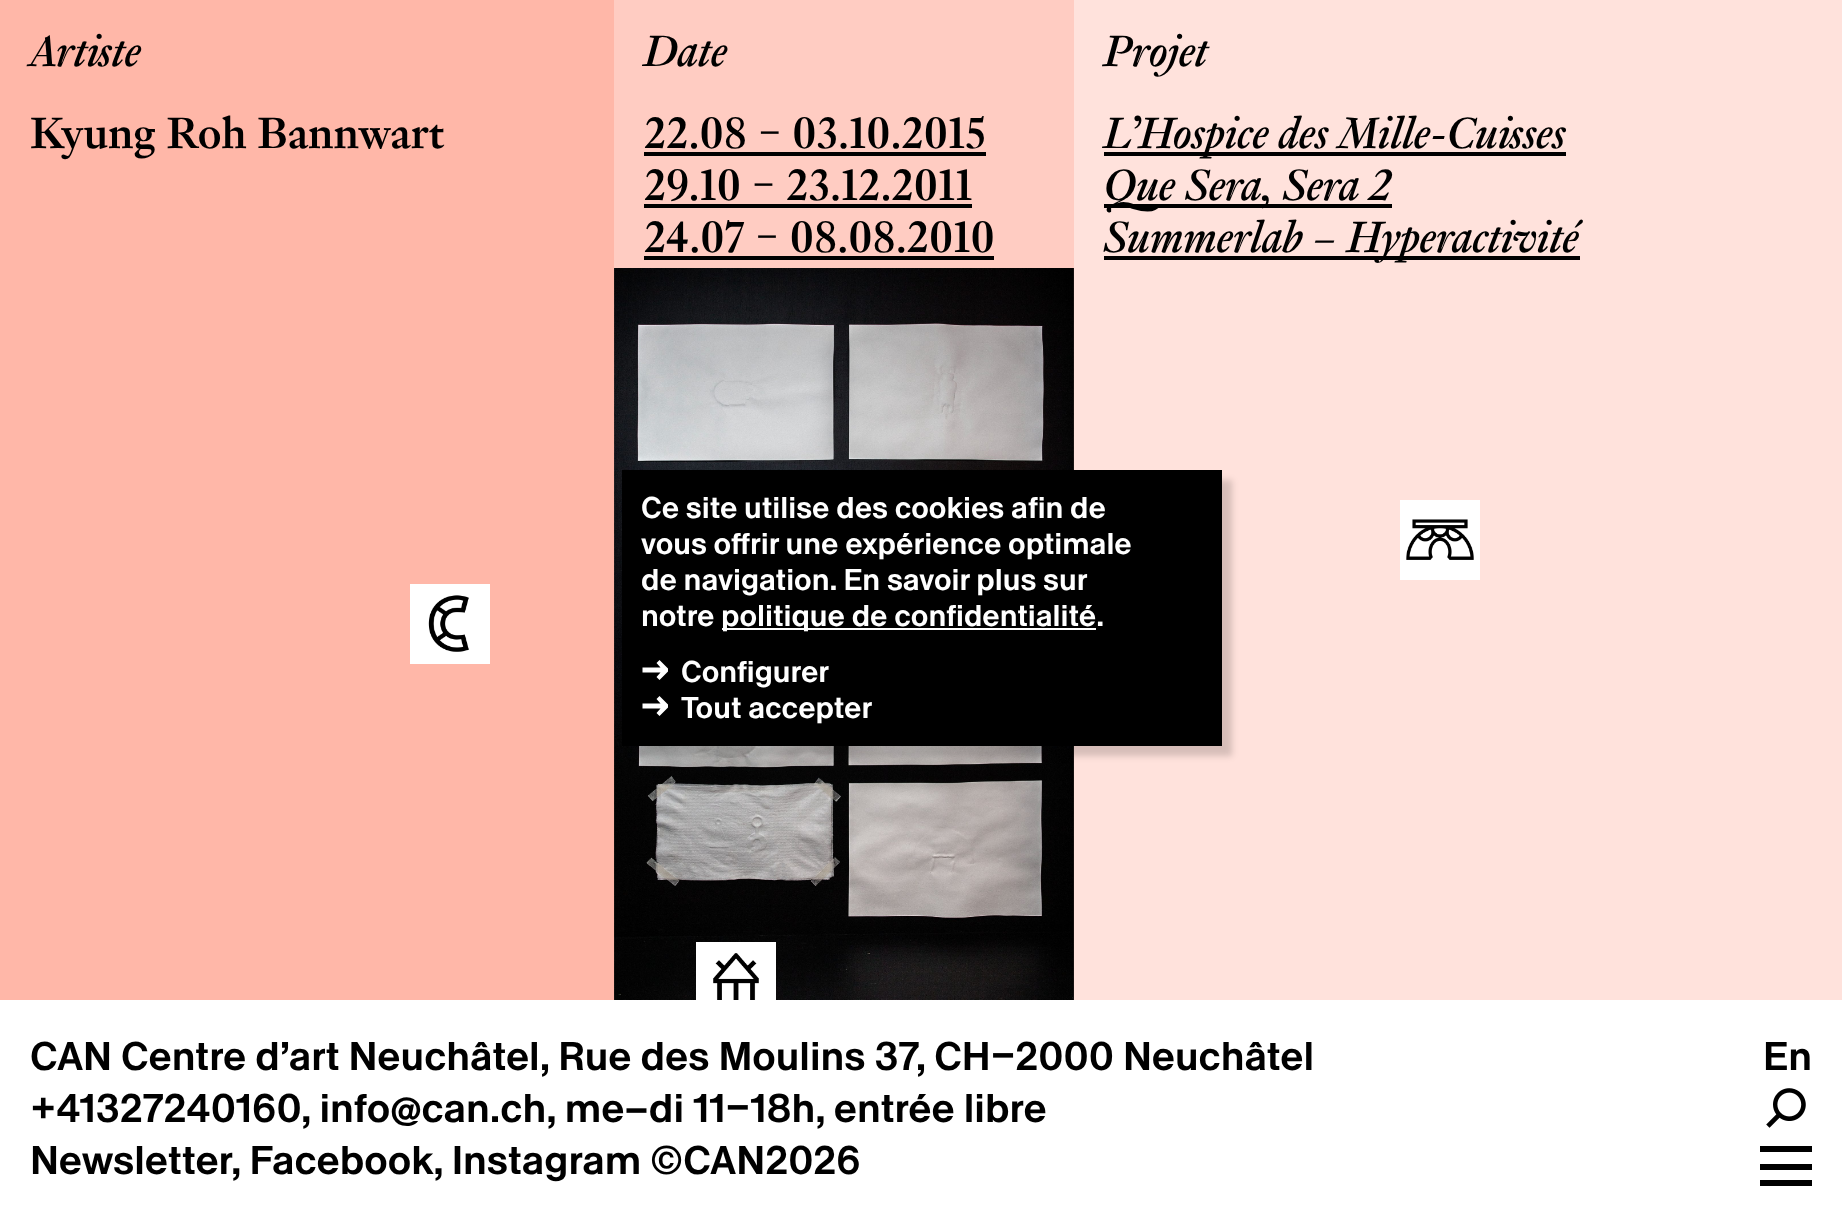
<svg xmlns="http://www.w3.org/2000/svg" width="1842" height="1215">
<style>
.a{font:italic bold 48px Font;fill:#000}
.b{font:bold 48px Font;fill:#000}
.c{font:500 30px Font;fill:#fff}
.d{font:500 40px Font;fill:#000}
</style>
<defs>
<clipPath id="clip1"><path d="M642 660h26v20H642z"/></clipPath>
<clipPath id="clip2"><path d="M642 696h26v20H642z"/></clipPath>
</defs>
<rect width="100%" height="100%" fill="#ffb7a8"/>
<image href="1.png" x="410" y="584" width="80" height="80"/>
<path fill="#ffccc2" d="M614 0h460v1000H614z"/>
<path fill="#000" d="M644 152h342v4H644z"/>
<path fill="#000" d="M644 204h328v4H644z"/>
<path fill="#000" d="M644 256h350v4H644z"/>
<image href="2.png" x="614" y="268" width="460" height="732"/>
<image href="3.png" x="696" y="942" width="80" height="58"/>
<path fill="#ffe2dc" d="M1074 0h768v1000H1074z"/>
<path fill="#000" d="M1104 152h462v4H1104z"/>
<path fill="#000" d="M1104 204h288v4H1104z"/>
<path fill="#000" d="M1104 256h476v4H1104z"/>
<image href="4.png" x="1400" y="500" width="80" height="80"/>
<path fill="#00000029" filter="blur(3px)" d="M632 480h600v276H632z"/>
<path fill="#000" d="M622 470h600v276H622z"/>
<path fill="#fff" d="M722 628h374v2H722z"/>
<g clip-path="url(#clip1)">
<path fill="#fff" d="M659.5 660l-3 3l4 4.5h-18v5h18l-4 4.5l3 3l10-10z"/>
</g>
<g clip-path="url(#clip2)">
<path fill="#fff" d="M659.5 696l-3 3l4 4.5h-18v5h18l-4 4.5l3 3l10-10z"/>
</g>
<path fill="#fff" d="M0 1000h1842v215H0z"/>
<image href="5.png" x="1766" y="1088" width="40" height="40"/>
<path fill="#000" d="M1760 1146h52v6H1760z"/>
<path fill="#000" d="M1760 1164h52v6H1760z"/>
<path fill="#000" d="M1760 1180h52v6H1760z"/>
<text class="a" x="30" y="66">Artiste</text>
<text class="b" x="30" y="148">Kyung Roh Bannwart</text>
<text class="a" x="644" y="66">Date</text>
<text class="b" x="644" y="148">22.08 – 03.10.2015</text>
<text class="b" x="644" y="200">29.10 – 23.12.2011</text>
<text class="b" x="644" y="252">24.07 – 08.08.2010</text>
<text class="a" x="1104" y="66">Projet</text>
<text class="a" x="1104" y="148">L’Hospice des Mille-Cuisses</text>
<text class="a" x="1104" y="200">Que Sera, Sera 2</text>
<text class="a" x="1104" y="252">Summerlab – Hyperactivité</text>
<text class="c" x="641" y="518">Ce site utilise des cookies afin de</text>
<text class="c" x="641" y="554">vous offrir une expérience optimale</text>
<text class="c" x="641" y="590">de navigation. En savoir plus sur</text>
<text class="c" x="641" y="626">notre</text>
<text class="c" x="721" y="626">politique de confidentialité.</text>
<text class="c" x="681" y="682">Configurer</text>
<text class="c" x="681" y="718">Tout accepter</text>
<text class="d" x="30" y="1070">CAN Centre d’art Neuchâtel, Rue des Moulins 37, CH–2000 Neuchâtel</text>
<text class="d" x="30" y="1122">+41327240160</text>
<text class="d" x="301" y="1122">, info@can.ch, me–di 11–18h, entrée libre</text>
<text class="d" x="30" y="1174">Newsletter</text>
<text class="d" x="231" y="1174">, Facebook, Instagram ©CAN2026</text>
<text class="d" x="1763" y="1070">En</text>
</svg>
